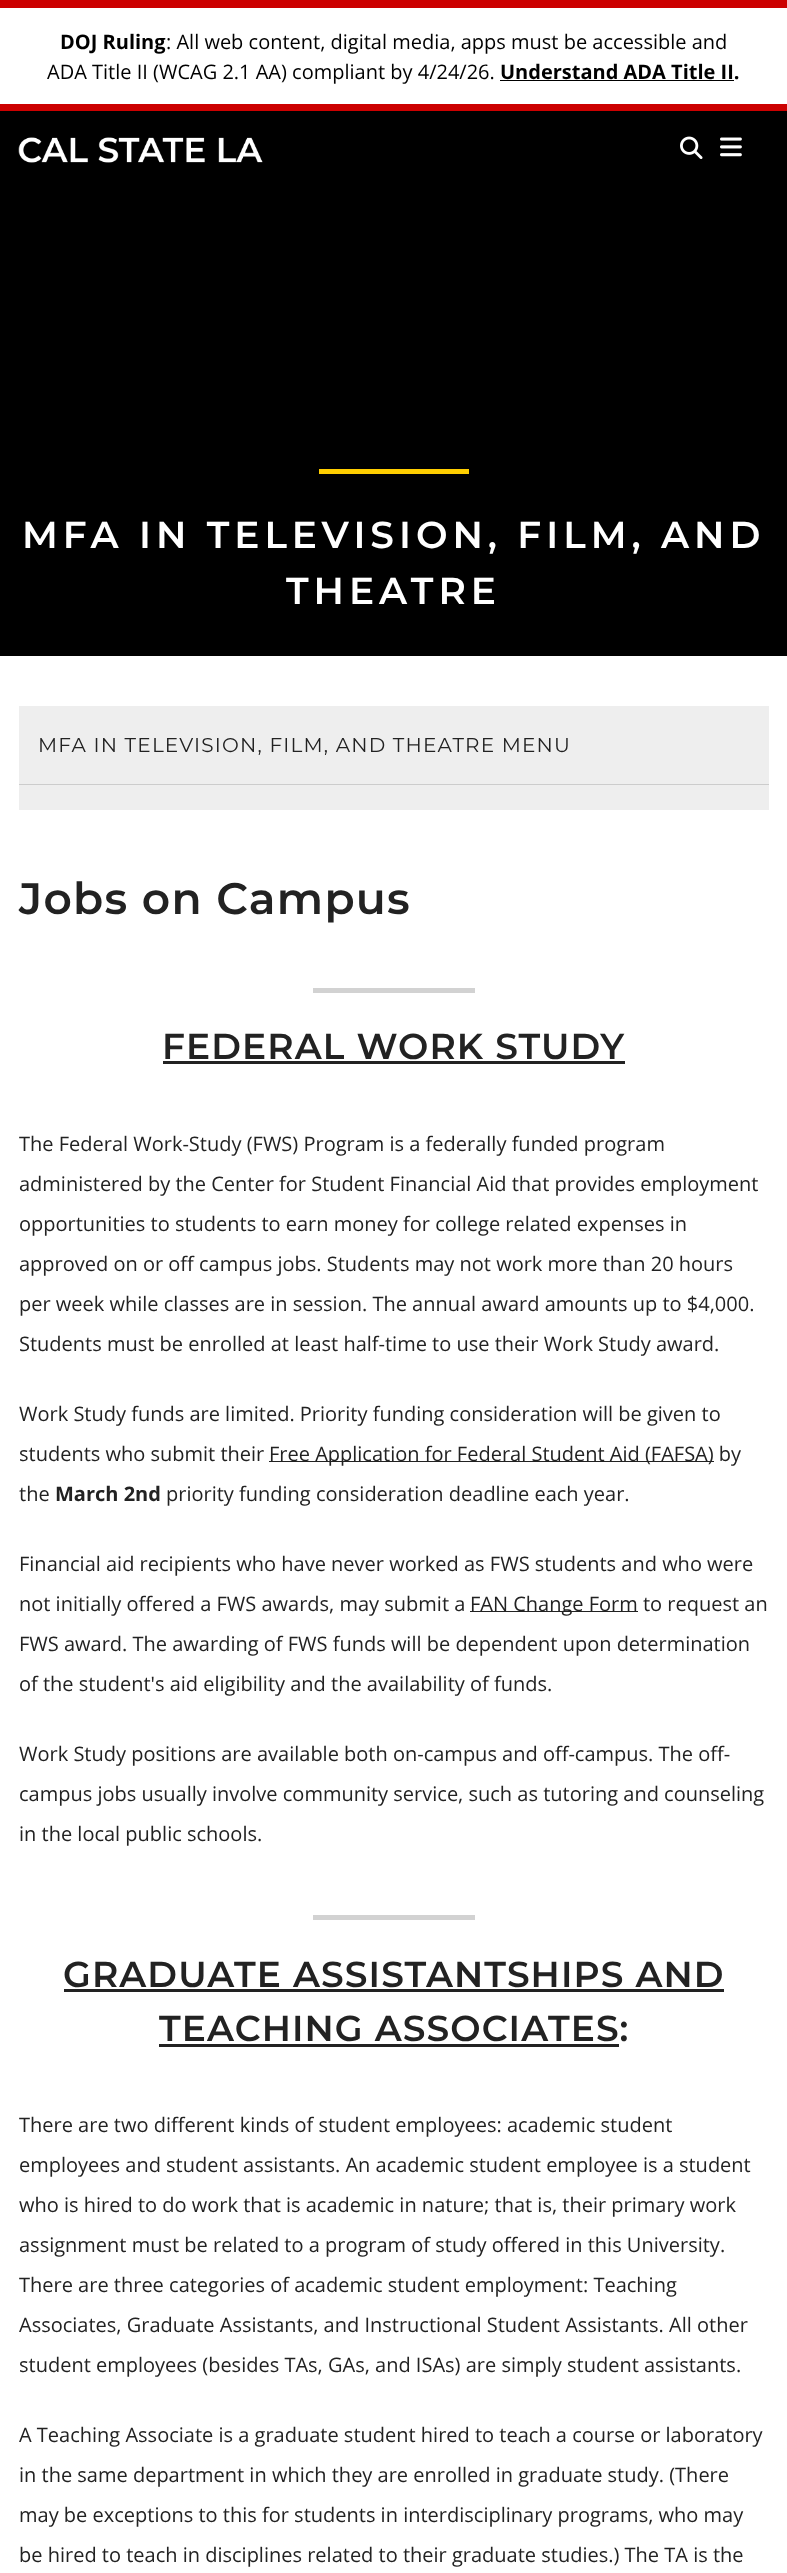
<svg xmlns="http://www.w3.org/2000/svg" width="787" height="2573">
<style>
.a{font:bold 20px Open Sans;fill:#000}
.b{font:20px Open Sans;fill:#000}
.c{font:600 37.5px Montserrat;letter-spacing:5px;fill:#fff}
.d{font:20px Montserrat;letter-spacing:1.2px;fill:#222}
.e{font:600 44px Montserrat;letter-spacing:1.25px;fill:#222}
.f{font:600 36px Montserrat;letter-spacing:1.1px;fill:#222}
.g{font:20px Open Sans;fill:#222}
.h{font:bold 20px Open Sans;fill:#222}
</style>
<rect width="100%" height="100%" fill="#fff"/>
<path fill="#c00" d="M0 0h787v8H0z"/>
<path fill="#c00" d="M0 104h787v7H0z"/>
<path fill="#000" d="M500 80h234v1H500z"/>
<path fill="#000" d="M0 111h787v545H0z"/>
<image href="1.png" x="18" y="137" width="245" height="26"/>
<image href="2.png" x="680" y="136" width="23" height="23"/>
<image href="3.png" x="720" y="137" width="22" height="20"/>
<path fill="#ffce00" d="M319 469h150v5H319z"/>
<path fill="#eee" d="M19 706h750v78H19z"/>
<path fill="#ccc" d="M19 784h750v1H19z"/>
<path fill="#eee" d="M19 785h750v25H19z"/>
<path fill="#d2d2d2" d="M313 988h162v5H313z"/>
<path fill="#222" d="M163 1061h462v3H163z"/>
<path fill="#222" d="M269 1461h445v1H269z"/>
<path fill="#222" d="M470 1611h168v1H470z"/>
<path fill="#d2d2d2" d="M313 1915h162v5H313z"/>
<path fill="#222" d="M64 1989h660v3H64z"/>
<path fill="#222" d="M159 2044h460v3H159z"/>
<text class="a" x="60" y="49">DOJ Ruling</text>
<text class="b" x="166" y="49">: All web content, digital media, apps must be accessible and</text>
<text class="b" x="47" y="79">ADA Title II (WCAG 2.1 AA) compliant by 4/24/26.</text>
<text class="a" x="500" y="79">Understand ADA Title II.</text>
<text class="c" x="22" y="548">MFA IN TELEVISION, FILM, AND</text>
<text class="c" x="286" y="604">THEATRE</text>
<text class="d" x="38" y="752">MFA IN TELEVISION, FILM, AND THEATRE MENU</text>
<text class="e" x="19" y="914">Jobs on Campus</text>
<text class="f" x="162" y="1059">FEDERAL WORK STUDY</text>
<text class="g" x="19" y="1151">The Federal Work-Study (FWS) Program is a federally funded program</text>
<text class="g" x="19" y="1191">administered by the Center for Student Financial Aid that provides employment</text>
<text class="g" x="19" y="1231">opportunities to students to earn money for college related expenses in</text>
<text class="g" x="19" y="1271">approved on or off campus jobs. Students may not work more than 20 hours</text>
<text class="g" x="19" y="1311">per week while classes are in session. The annual award amounts up to $4,000.</text>
<text class="g" x="19" y="1351">Students must be enrolled at least half-time to use their Work Study award.</text>
<text class="g" x="19" y="1421">Work Study funds are limited. Priority funding consideration will be given to</text>
<text class="g" x="19" y="1461">students who submit their</text>
<text class="g" x="269" y="1461">Free Application for Federal Student Aid (FAFSA) by</text>
<text class="g" x="19" y="1501">the</text>
<text class="h" x="55" y="1501">March 2nd</text>
<text class="g" x="166" y="1501">priority funding consideration deadline each year.</text>
<text class="g" x="19" y="1571">Financial aid recipients who have never worked as FWS students and who were</text>
<text class="g" x="19" y="1611">not initially offered a FWS awards, may submit a</text>
<text class="g" x="470" y="1611">FAN Change Form to request an</text>
<text class="g" x="19" y="1651">FWS award. The awarding of FWS funds will be dependent upon determination</text>
<text class="g" x="19" y="1691">of the student's aid eligibility and the availability of funds.</text>
<text class="g" x="19" y="1761">Work Study positions are available both on-campus and off-campus. The off-</text>
<text class="g" x="19" y="1801">campus jobs usually involve community service, such as tutoring and counseling</text>
<text class="g" x="19" y="1841">in the local public schools.</text>
<text class="f" x="63" y="1987">GRADUATE ASSISTANTSHIPS AND</text>
<text class="f" x="159" y="2041">TEACHING ASSOCIATES:</text>
<text class="g" x="19" y="2132">There are two different kinds of student employees: academic student</text>
<text class="g" x="19" y="2172">employees and student assistants. An academic student employee is a student</text>
<text class="g" x="19" y="2212">who is hired to do work that is academic in nature; that is, their primary work</text>
<text class="g" x="19" y="2252">assignment must be related to a program of study offered in this University.</text>
<text class="g" x="19" y="2292">There are three categories of academic student employment: Teaching</text>
<text class="g" x="19" y="2332">Associates, Graduate Assistants, and Instructional Student Assistants. All other</text>
<text class="g" x="19" y="2372">student employees (besides TAs, GAs, and ISAs) are simply student assistants.</text>
<text class="g" x="19" y="2442">A Teaching Associate is a graduate student hired to teach a course or laboratory</text>
<text class="g" x="19" y="2482">in the same department in which they are enrolled in graduate study. (There</text>
<text class="g" x="19" y="2522">may be exceptions to this for students in interdisciplinary programs, who may</text>
<text class="g" x="19" y="2562">be hired to teach in disciplines related to their graduate studies.) The TA is the</text>
</svg>
